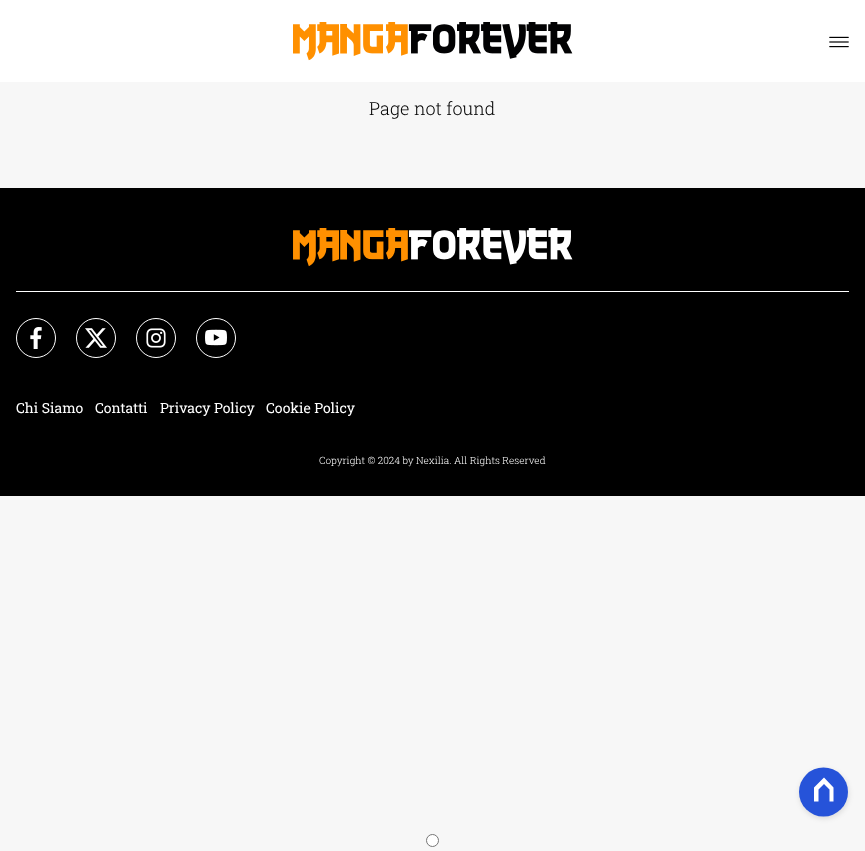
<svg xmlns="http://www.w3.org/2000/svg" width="865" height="851">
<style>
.a{font:300 18px Roboto Slab;fill:#000}
.b{font:14px Roboto Slab;fill:#fff}
.c{font:300 10px Roboto Slab;fill:#fff}
</style>
<rect width="100%" height="100%" fill="#f7f7f7"/>
<path fill="#fff" d="M0 0h865v82H0z"/>
<image href="1.png" x="293" y="22" width="280" height="39"/>
<image href="2.png" x="829" y="36" width="20" height="12"/>
<path fill="#000" d="M0 188h865v308H0z"/>
<image href="3.png" x="293" y="228" width="280" height="39"/>
<path fill="#fff" d="M16 291h833v1H16z"/>
<circle fill="none" stroke="#fff" cx="36" cy="338" r="19.5"/>
<image href="4.png" x="30" y="327" width="12" height="22"/>
<circle fill="none" stroke="#fff" cx="96" cy="338" r="19.5"/>
<image href="5.png" x="85" y="328" width="22" height="20"/>
<circle fill="none" stroke="#fff" cx="156" cy="338" r="19.5"/>
<image href="6.png" x="146" y="328" width="20" height="20"/>
<circle fill="none" stroke="#fff" cx="216" cy="338" r="19.5"/>
<image href="7.png" x="205" y="329" width="22" height="17"/>
<rect fill="#0000001a" filter="blur(2.5px)" x="799" y="769" width="50" height="50" rx="25"/>
<circle fill="#2653d9" cx="823.5" cy="792" r="24.5"/>
<path fill="#fff" d="M833.5 787.5l-9.5-10l-10 10v14h4.5v-12l5.5-5.5l5.5 5.5v12h4z"/>
<circle fill="#fff" stroke="#767676" cx="432.5" cy="840.5" r="6"/>
<text class="a" x="369" y="115">Page not found</text>
<text class="b" x="16" y="413">Chi Siamo</text>
<text class="b" x="95" y="413">Contatti</text>
<text class="b" x="160" y="413">Privacy Policy</text>
<text class="b" x="266" y="413">Cookie Policy</text>
<text class="c" x="319" y="464">Copyright © 2024 by Nexilia. All Rights Reserved</text>
</svg>
